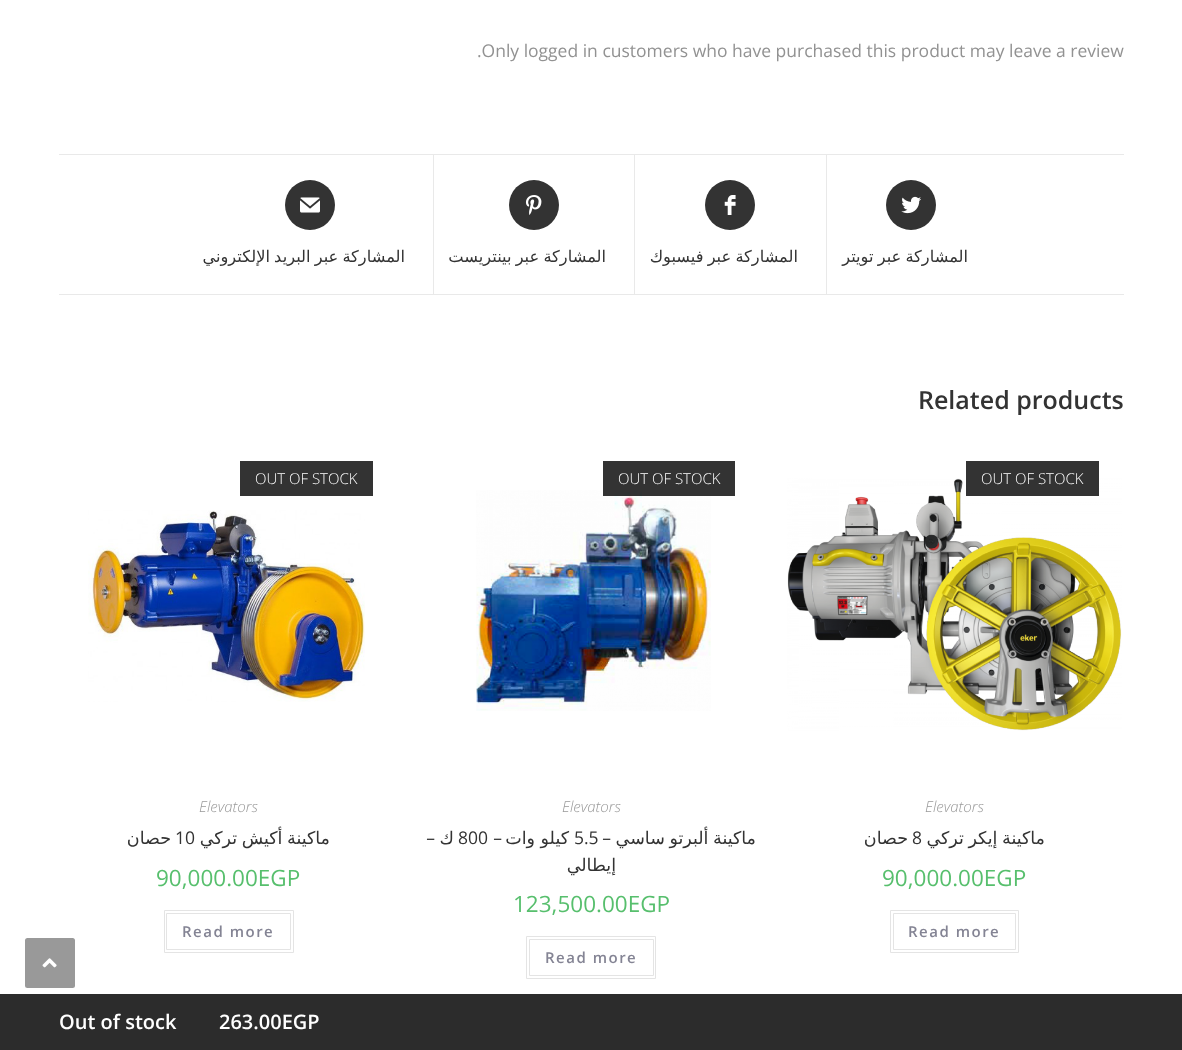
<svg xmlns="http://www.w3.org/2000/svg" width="1182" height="1050">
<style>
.a{font:17.5px Open Sans;fill:#929292}
.b{font:16.25px DejaVu Sans;direction:rtl;fill:#333}
.c{font:600 25px Open Sans;fill:#333}
.d{font:300 15px Open Sans;fill:#fff}
.e{font:italic 300 15px Open Sans;fill:#999}
.f{font:17.5px DejaVu Sans;direction:rtl;fill:#333}
.g{font:17.5px Open Sans;fill:#333}
.h{font:22.5px Open Sans;fill:#57bf6d}
.i{font:600 15px Open Sans;letter-spacing:1.5px;fill:#848494}
.j{font:17.5px Open Sans;direction:rtl;fill:#333}
.k{font:600 20px Open Sans;fill:#fff}
</style>
<rect width="100%" height="100%" fill="#fff"/>
<rect fill="#999" x="25" y="938" width="50" height="50" rx="2.5"/>
<image href="1.png" x="42" y="958" width="15" height="10"/>
<path fill="#e9e9e9" d="M59 154h1065v1H59z"/>
<path fill="#e9e9e9" d="M59 294h1065v1H59z"/>
<circle fill="#333" cx="310" cy="205" r="25"/>
<image href="2.png" x="300" y="197" width="20" height="16"/>
<path fill="#e9e9e9" d="M433 155h1v139H433z"/>
<circle fill="#333" cx="534" cy="205" r="25"/>
<image href="3.png" x="525" y="195" width="17" height="20"/>
<path fill="#e9e9e9" d="M634 155h1v139H634z"/>
<circle fill="#333" cx="730" cy="205" r="25"/>
<image href="4.png" x="724" y="195" width="12" height="20"/>
<path fill="#e9e9e9" d="M826 155h1v139H826z"/>
<circle fill="#333" cx="911" cy="205" r="25"/>
<image href="5.png" x="901" y="196" width="20" height="18"/>
<path fill="#333" d="M240 461h133v35H240z"/>
<image href="6.png" x="88" y="510" width="277" height="192"/>
<path fill="none" stroke="#e4e4e4" d="M164.5 910.5h129v42H164.5z"/>
<path fill="none" stroke="#e4e4e4" d="M166.5 913.5h124v36H166.5z"/>
<image href="7.png" x="476" y="490" width="235" height="221"/>
<path fill="#000000cc" d="M603 461h132v35H603z"/>
<path fill="none" stroke="#e4e4e4" d="M526.5 936.5h129v42H526.5z"/>
<path fill="none" stroke="#e4e4e4" d="M529.5 939.5h124v36H529.5z"/>
<image href="8.png" x="787" y="478" width="335" height="253"/>
<path fill="#333" d="M966 461h133v35H966z"/>
<path fill="none" stroke="#e4e4e4" d="M890.5 910.5h128v42H890.5z"/>
<path fill="none" stroke="#e4e4e4" d="M893.5 913.5h122v36H893.5z"/>
<path fill="#2c2c2c" d="M0 994h1182v56H0z"/>
<text class="a" x="477" y="57">.Only logged in customers who have purchased this product may leave a review</text>
<text class="b" x="405" y="262" word-spacing="-1">المشاركة عبر البريد الإلكتروني</text>
<text class="b" x="606" y="262" word-spacing="-1">المشاركة عبر بينتريست</text>
<text class="b" x="798" y="262" word-spacing="-1">المشاركة عبر فيسبوك</text>
<text class="b" x="968" y="262" word-spacing="-1">المشاركة عبر تويتر</text>
<text class="c" x="918" y="409">Related products</text>
<text class="d" x="255" y="484">OUT OF STOCK</text>
<text class="e" x="199" y="812">Elevators</text>
<text class="f" x="171" y="844">حصان</text>
<text class="g" x="175" y="844">10</text>
<text class="f" x="330" y="844" word-spacing="-1">ماكينة أكيش تركي</text>
<text class="h" x="156" y="886">90,000.00EGP</text>
<text class="i" x="182" y="937">Read more</text>
<text class="d" x="618" y="484">OUT OF STOCK</text>
<text class="e" x="562" y="812">Elevators</text>
<text class="j" x="435" y="844">–</text>
<text class="f" x="454" y="844">ك</text>
<text class="g" x="458" y="844">800</text>
<text class="j" x="502" y="844">–</text>
<text class="f" x="569" y="844">كيلو وات</text>
<text class="g" x="574" y="844">5.5</text>
<text class="j" x="611" y="844">–</text>
<text class="f" x="756" y="844" word-spacing="-1">ماكينة ألبرتو ساسي</text>
<text class="f" x="616" y="871">إيطالي</text>
<text class="h" x="513" y="912">123,500.00EGP</text>
<text class="i" x="545" y="963">Read more</text>
<text class="d" x="981" y="484">OUT OF STOCK</text>
<text class="e" x="925" y="812">Elevators</text>
<text class="f" x="908" y="844">حصان</text>
<text class="g" x="912" y="844">8</text>
<text class="f" x="1045" y="844" word-spacing="-1">ماكينة إيكر تركي</text>
<text class="h" x="882" y="886">90,000.00EGP</text>
<text class="i" x="908" y="937">Read more</text>
<text class="k" x="59" y="1029">Out of stock</text>
<text class="k" x="219" y="1029">263.00EGP</text>
</svg>
